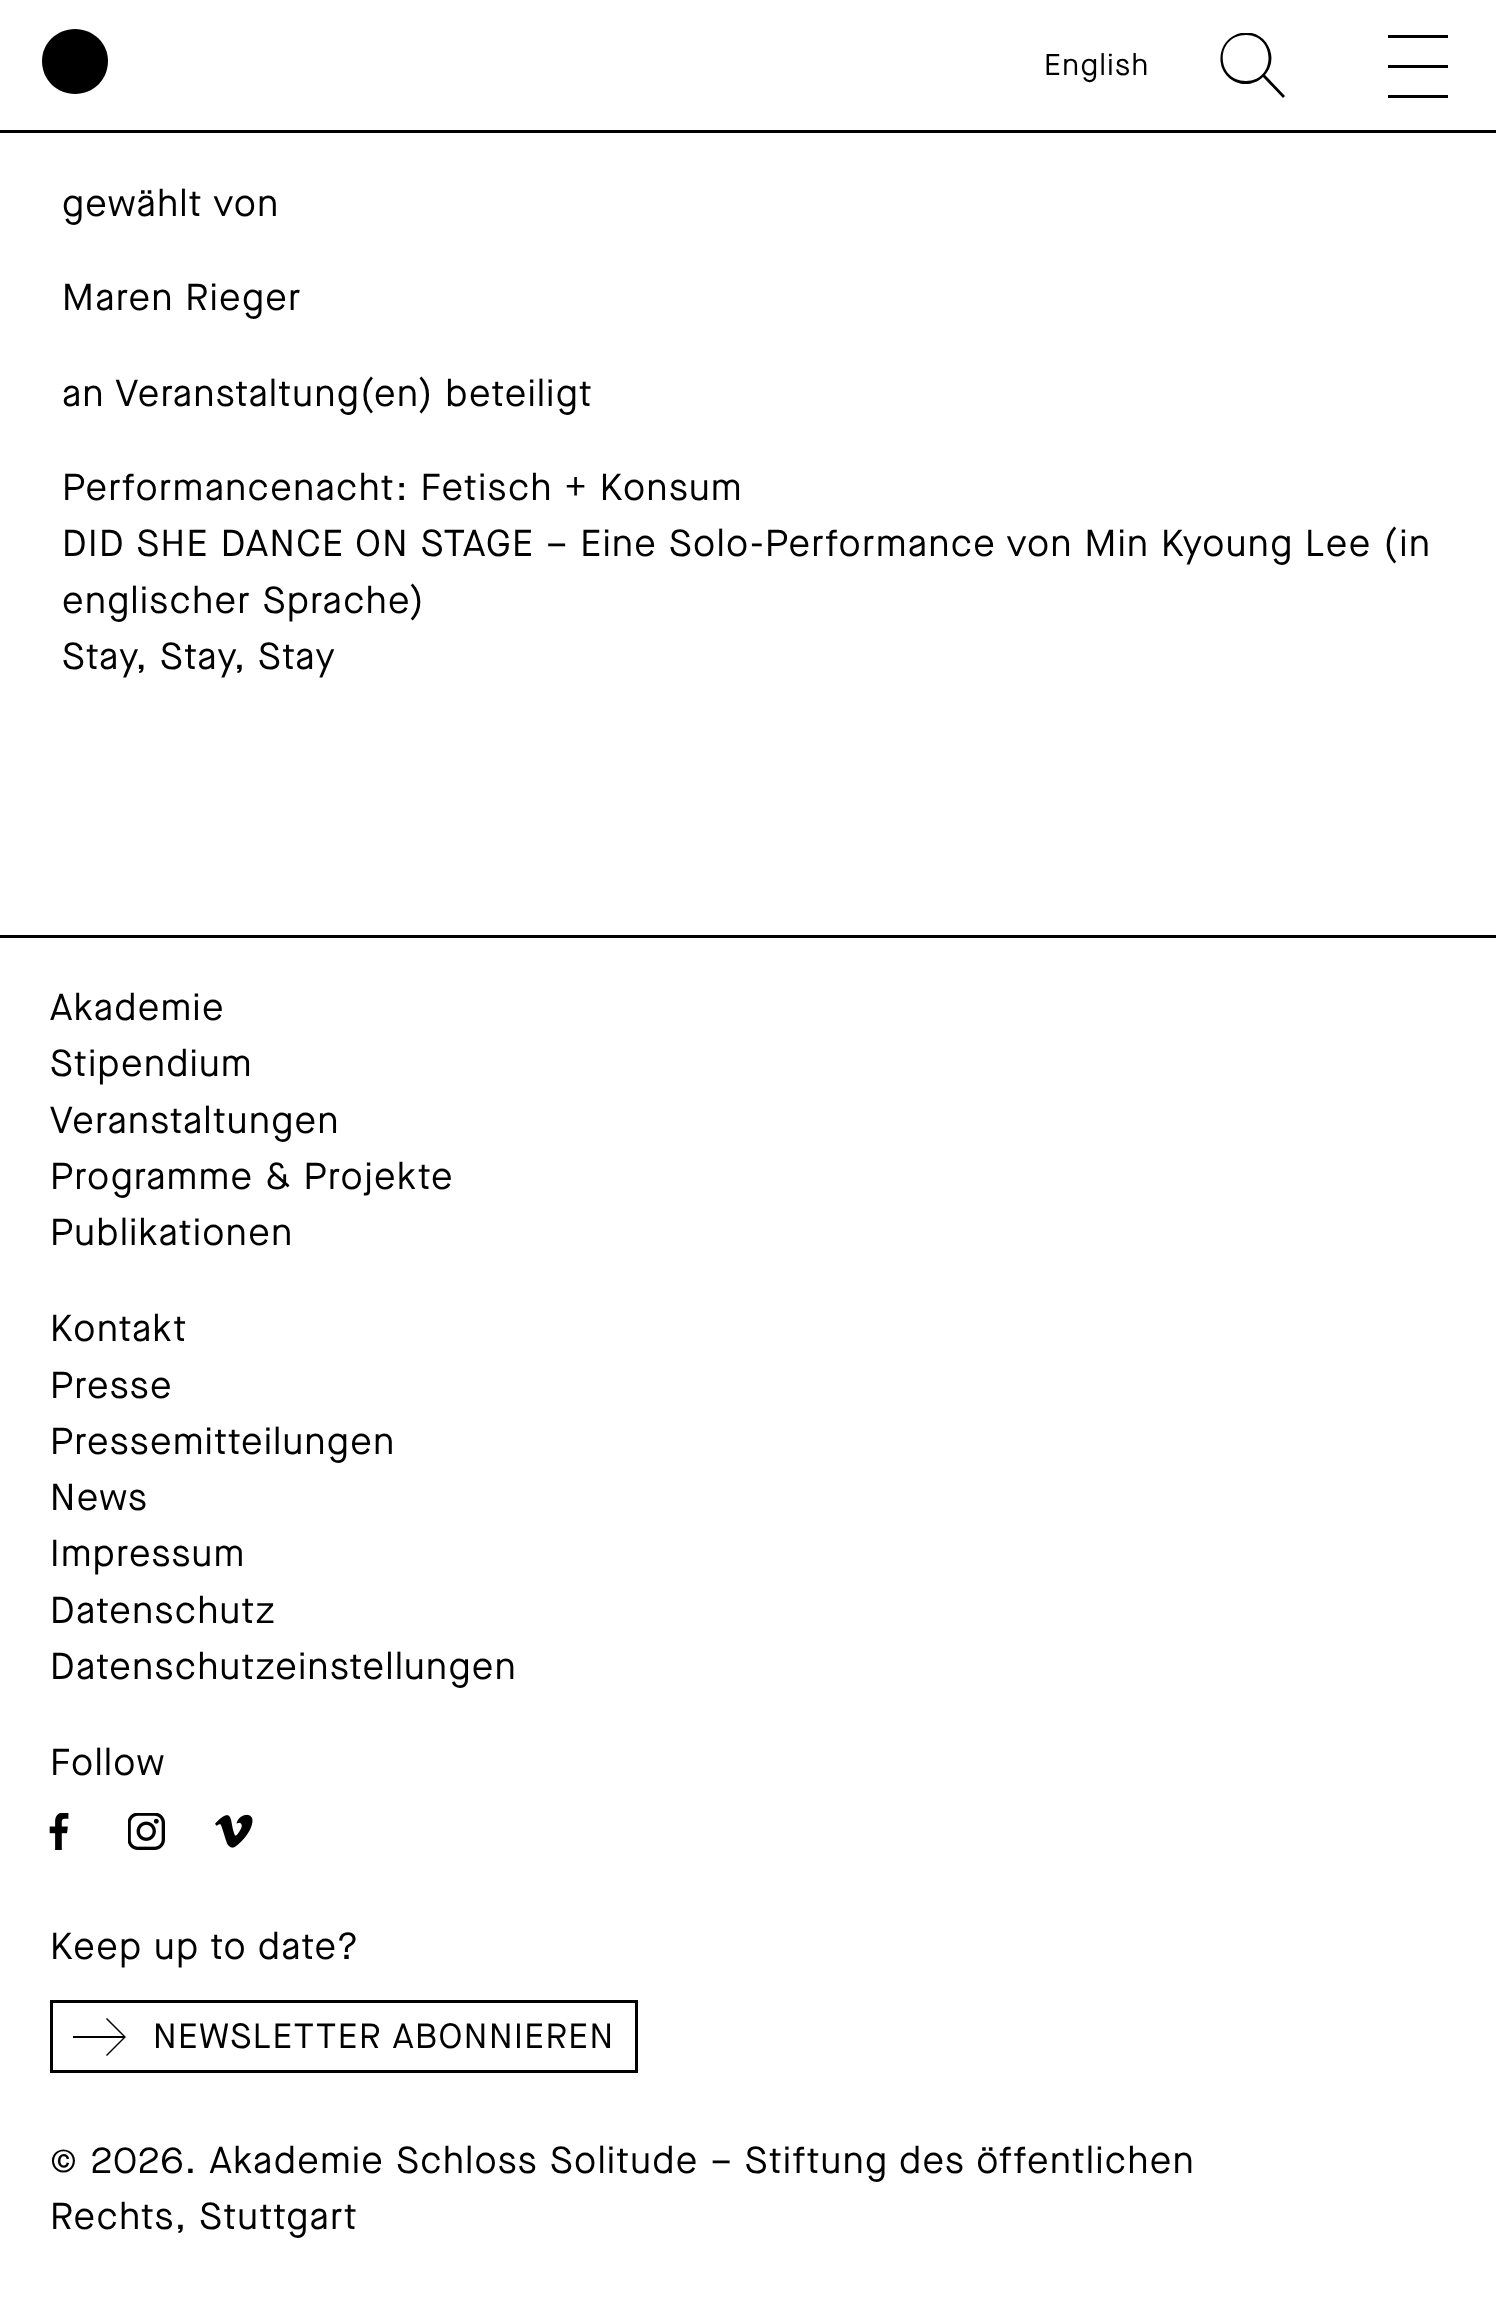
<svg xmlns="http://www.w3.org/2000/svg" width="1496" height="2302">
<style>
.a{font:30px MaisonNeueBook;letter-spacing:1.5px;fill:#000}
.b{font:37.5px MaisonNeueBook;letter-spacing:1.5px;fill:#000}
.c{font:35px MaisonNeueBook;letter-spacing:1.5px;fill:#000}
</style>
<defs>
<clipPath id="clip1"><path d="M1220 33h65v65H1220z"/></clipPath>
</defs>
<rect width="100%" height="100%" fill="#fff"/>
<path fill="#000" d="M0 130h1496v3H0z"/>
<path fill="#000" d="M75 94c18 0 33-14 33-33c0-18-15-32-33-32c-18 0-33 14-33 32c0 19 15 33 33 33z"/>
<g clip-path="url(#clip1)">
<path fill="#000" fill-rule="evenodd" d="M1263 77c-18 17-47 1-42-24c1-5 3-9 7-13c3-3 8-6 13-7c24-5 40 24 24 42l20 21l-2 2zm-17-42c30 0 30 46 0 46c-31 0-31-46 0-46z"/>
</g>
<path fill="#000" d="M1388 35h60v3H1388z"/>
<path fill="#000" d="M1388 65h60v3H1388z"/>
<path fill="#000" d="M1388 95h60v3H1388z"/>
<path fill="#000" d="M0 935h1496v3H0z"/>
<image href="1.png" x="49" y="1813" width="20" height="37"/>
<image href="2.png" x="128" y="1813" width="37" height="37"/>
<image href="3.png" x="215" y="1814" width="38" height="34"/>
<path fill="none" stroke="#000" stroke-width="3" d="M51.5 2001.5h585v70H51.5z"/>
<path fill="#000" d="M123 2038l-17 17l1 1l19-19l-19-19l-1 1l17 17h-50v2z"/>
<text class="a" x="1044" y="75">English</text>
<text class="b" x="62" y="216">gewählt von</text>
<text class="b" x="62" y="310">Maren Rieger</text>
<text class="b" x="62" y="406">an Veranstaltung(en) beteiligt</text>
<text class="b" x="62" y="500">Performancenacht: Fetisch + Konsum</text>
<text class="b" x="62" y="556">DID SHE DANCE ON STAGE – Eine Solo-Performance von Min Kyoung Lee (in</text>
<text class="b" x="62" y="613">englischer Sprache)</text>
<text class="b" x="62" y="669">Stay, Stay, Stay</text>
<text class="b" x="50" y="1020">Akademie</text>
<text class="b" x="50" y="1076">Stipendium</text>
<text class="b" x="50" y="1133">Veranstaltungen</text>
<text class="b" x="50" y="1189">Programme &amp; Projekte</text>
<text class="b" x="50" y="1245">Publikationen</text>
<text class="b" x="50" y="1341">Kontakt</text>
<text class="b" x="50" y="1398">Presse</text>
<text class="b" x="50" y="1454">Pressemitteilungen</text>
<text class="b" x="50" y="1510">News</text>
<text class="b" x="50" y="1566">Impressum</text>
<text class="b" x="50" y="1623">Datenschutz</text>
<text class="b" x="50" y="1679">Datenschutzeinstellungen</text>
<text class="b" x="50" y="1775">Follow</text>
<text class="b" x="50" y="1959">Keep up to date?</text>
<text class="c" x="153" y="2048">NEWSLETTER ABONNIEREN</text>
<text class="b" x="50" y="2173" word-spacing="0.25">© 2026. Akademie Schloss Solitude – Stiftung des öffentlichen</text>
<text class="b" x="50" y="2229">Rechts, Stuttgart</text>
</svg>
